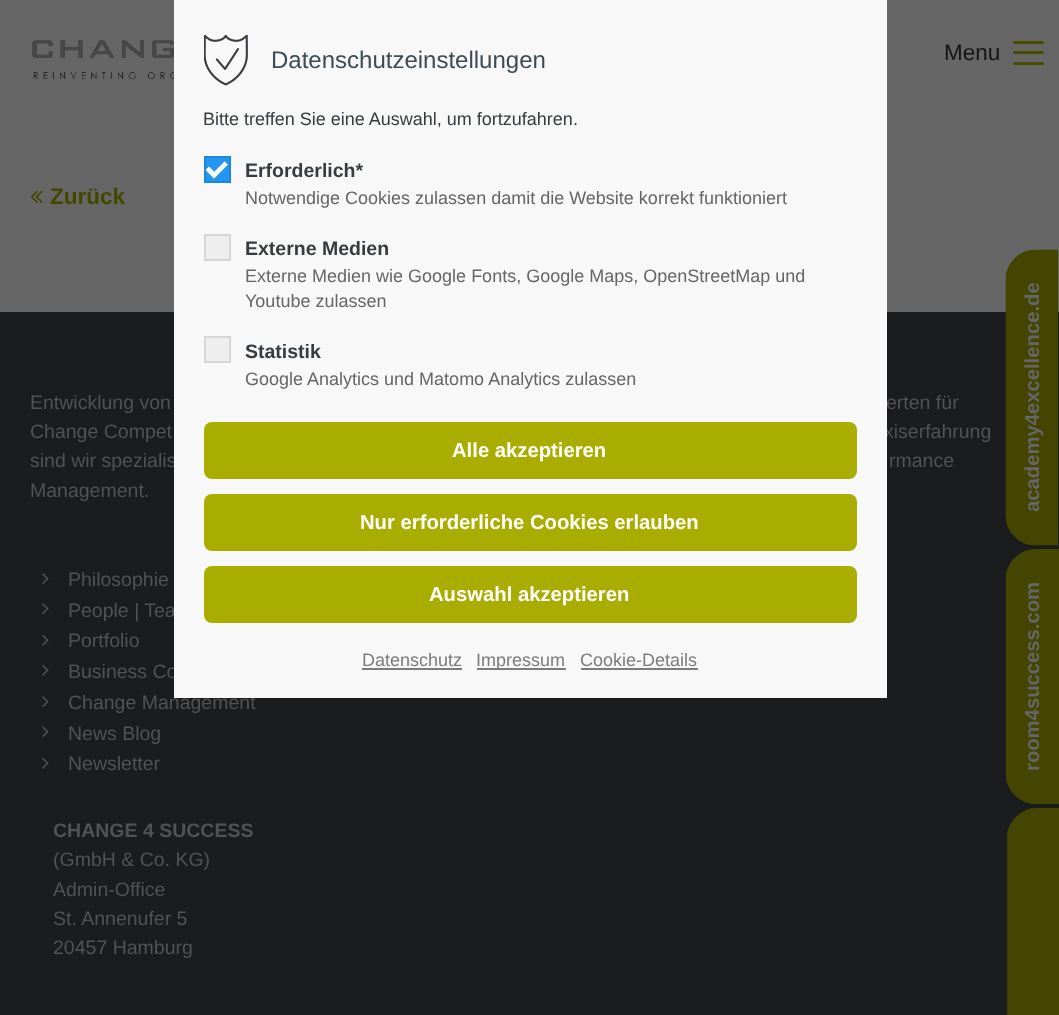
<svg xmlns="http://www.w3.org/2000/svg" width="1059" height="1015">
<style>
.a{font:22.5px Liberation Sans;fill:#141414}
.b{font:bold 22.5px Liberation Sans;fill:#444700}
.c{font:bold 20.25px Liberation Sans;fill:#666}
.d{font:19.5px Liberation Sans;fill:#525252}
.e{font:bold 19.5px Liberation Sans;fill:#525252}
.f{font:24px Liberation Sans;fill:#3c4b55}
.g{font:18px Liberation Sans;fill:#373c40}
.h{font:bold 19.5px Liberation Sans;fill:#373c40}
.i{font:18px Liberation Sans;fill:#666}
.j{font:bold 20.25px Liberation Sans;fill:#fff}
.k{font:18px Liberation Sans;fill:#7c7c7c}
</style>
<defs>
<clipPath id="clip1"><path d="M1005.5 545.5v-296h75v296z"/></clipPath>
<clipPath id="clip2"><path d="M1006.5 804v-255h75v255z"/></clipPath>
<clipPath id="clip3"><path d="M1007.5 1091v-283h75v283z"/></clipPath>
</defs>
<rect width="100%" height="100%" fill="#666"/>
<image href="1.png" x="32" y="40" width="142" height="39"/>
<rect fill="#4a4d00" x="1013" y="51" width="31" height="3" rx="1.5"/>
<rect fill="#4a4d00" x="1013" y="41" width="31" height="3" rx="1.5"/>
<rect fill="#4a4d00" x="1013" y="62" width="31" height="3" rx="1.5"/>
<image href="2.png" x="30" y="190" width="13" height="13"/>
<path fill="#1a1c1e" d="M0 312h1059v703H0z"/>
<path fill="#444500" d="M1006 515v-235c0-17 13-30 30-30h22v295h-22c-17 0-30-13-30-30z"/>
<g clip-path="url(#clip1)">
<path fill="none" stroke="#444500" stroke-width="3" d="M1007 515.5v-236c0-15.5 13-28.5 28.5-28.5h21v293h-21c-15.5 0-28.5-13-28.5-28.5z"/>
</g>
<path fill="#444500" d="M1006 779v-205c3-15 16-25 30-25h23v255h-23c-14 0-27-10-30-25z"/>
<g clip-path="url(#clip2)">
<path fill="none" stroke="#444500" stroke-width="3" d="M1008 774v-195c0-16 12.5-28.5 28.5-28.5h21v252h-21c-16 0-28.5-12.5-28.5-28.5z"/>
</g>
<path fill="#444500" d="M1007 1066v-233c3-14 16-25 30-25h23v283h-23c-14 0-27-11-30-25z"/>
<g clip-path="url(#clip3)">
<path fill="none" stroke="#444500" stroke-width="3" d="M1009 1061v-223c0-16 12.5-28.5 28.5-28.5h21v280h-21c-16 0-28.5-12.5-28.5-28.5z"/>
</g>
<image href="3.png" x="42" y="573" width="7" height="12"/>
<image href="3.png" x="42" y="603" width="7" height="12"/>
<image href="4.png" x="42" y="634" width="7" height="12"/>
<image href="4.png" x="42" y="664" width="7" height="12"/>
<image href="3.png" x="42" y="696" width="7" height="12"/>
<image href="3.png" x="42" y="726" width="7" height="12"/>
<image href="4.png" x="42" y="757" width="7" height="12"/>
<text class="a" x="944" y="60">Menu</text>
<text class="b" x="50" y="204">Zurück</text>
<text class="c" x="1039" y="512" transform="rotate(-90 1039 512)">academy4excellence.de</text>
<text class="c" x="1039" y="771" transform="rotate(-90 1039 771)">room4success.com</text>
<text class="d" x="30" y="409">Entwicklung von</text>
<text class="d" x="886" y="409">erten für</text>
<text class="d" x="30" y="438">Change Compet</text>
<text class="d" x="884" y="438">xiserfahrung</text>
<text class="d" x="30" y="467">sind wir spezialis</text>
<text class="d" x="889" y="467">rmance</text>
<text class="d" x="30" y="497">Management.</text>
<text class="d" x="68" y="586">Philosophie</text>
<text class="d" x="68" y="617">People | Tea</text>
<text class="d" x="68" y="647">Portfolio</text>
<text class="d" x="68" y="678">Business Co</text>
<text class="d" x="68" y="709">Change Management</text>
<text class="d" x="68" y="740">News Blog</text>
<text class="d" x="68" y="770">Newsletter</text>
<text class="e" x="53" y="837">CHANGE 4 SUCCESS</text>
<text class="d" x="53" y="866">(GmbH &amp; Co. KG)</text>
<text class="d" x="53" y="896">Admin-Office</text>
<text class="d" x="53" y="925">St. Annenufer 5</text>
<text class="d" x="53" y="954">20457 Hamburg</text>
<path fill="#f8f8f8" d="M174 0h713v698H174z"/>
<image href="5.png" x="204" y="35" width="44" height="51"/>
<text class="f" x="271" y="68">Datenschutzeinstellungen</text>
<text class="g" x="203" y="125">Bitte treffen Sie eine Auswahl, um fortzufahren.</text>
<path fill="#2196f3" stroke="#1e87db" stroke-width="2" d="M205 157h25v25H205z"/>
<path fill="#fff" d="M224.5 161.5l3.5 3l-14 14l-3-3.5z"/>
<path fill="#fff" d="M209 166.5l8.5 8.5l-3.5 3.5l-8.5-8.5z"/>
<text class="h" x="245" y="177">Erforderlich*</text>
<text class="i" x="245" y="204">Notwendige Cookies zulassen damit die Website korrekt funktioniert</text>
<path fill="#eee" stroke="#d6d6d6" stroke-width="2" d="M205 235h25v25H205z"/>
<text class="h" x="245" y="255">Externe Medien</text>
<text class="i" x="245" y="282">Externe Medien wie Google Fonts, Google Maps, OpenStreetMap und</text>
<text class="i" x="245" y="307">Youtube zulassen</text>
<path fill="#eee" stroke="#d6d6d6" stroke-width="2" d="M205 337h25v25H205z"/>
<text class="h" x="245" y="358">Statistik</text>
<text class="i" x="245" y="385">Google Analytics und Matomo Analytics zulassen</text>
<rect fill="#a9ad00" x="204" y="422" width="653" height="57" rx="8"/>
<text class="j" x="452" y="457">Alle akzeptieren</text>
<rect fill="#a9ad00" x="204" y="494" width="653" height="57" rx="8"/>
<text class="j" x="360" y="529">Nur erforderliche Cookies erlauben</text>
<rect fill="#a9ad00" x="204" y="566" width="653" height="57" rx="8"/>
<text class="j" x="429" y="601">Auswahl akzeptieren</text>
<text class="k" x="362" y="666">Datenschutz</text>
<path fill="#7c7c7c" d="M362 668h100v2H362z"/>
<path fill="#7c7c7c" d="M477 668h89v2H477z"/>
<text class="k" x="476" y="666">Impressum</text>
<text class="k" x="580" y="666">Cookie-Details</text>
<path fill="#7c7c7c" d="M581 668h117v2H581z"/>
</svg>
